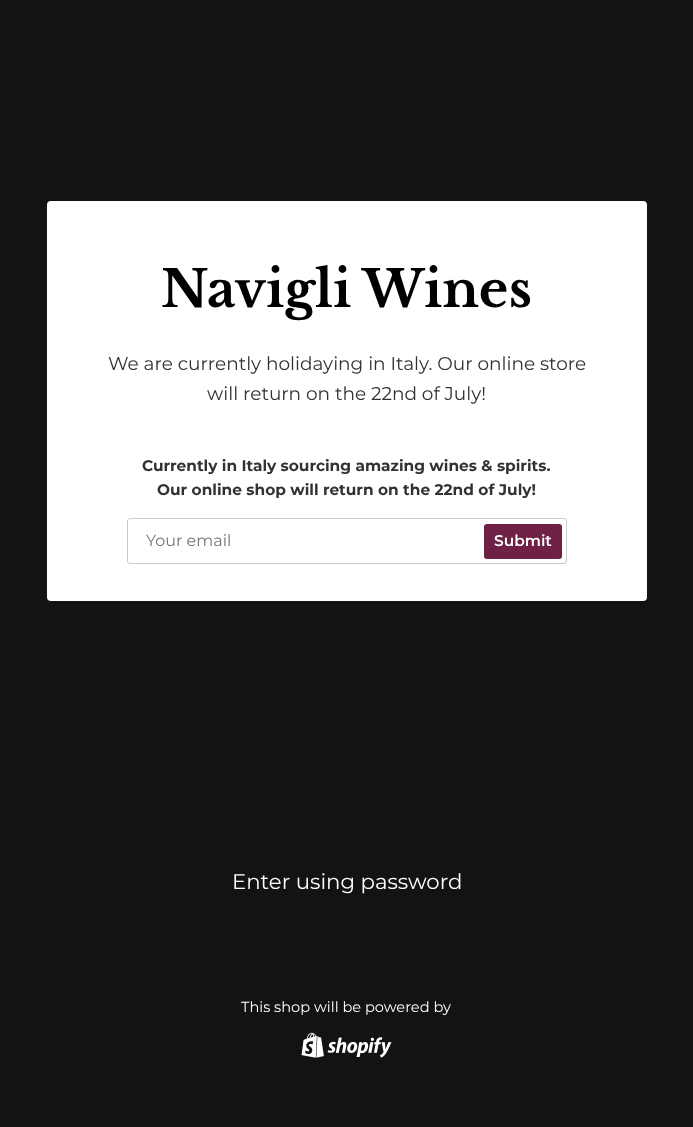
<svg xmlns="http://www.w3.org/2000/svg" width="693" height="1127">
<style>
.a{font:bold 50.5px Libre Baskerville;fill:#000}
.b{font:18.5px Montserrat;fill:#333133}
.c{font:bold 15.4px Montserrat;fill:#333133}
.d{font:16px Montserrat;fill:#757575}
.e{font:600 15.4px Montserrat;fill:#fff}
.f{font:21.25px Montserrat;fill:#fff}
.g{font:14.6px Montserrat;fill:#fff}
</style>
<rect width="100%" height="100%" fill="#141314"/>
<rect fill="#fff" x="47" y="201" width="600" height="400" rx="4"/>
<rect fill="none" stroke="#cec8cc" x="127.5" y="518.5" width="439" height="45" rx="2.5"/>
<rect fill="#6e2144" x="484" y="524" width="78" height="35" rx="3"/>
<image href="1.png" x="301" y="1032" width="91" height="26"/>
<text class="a" x="161" y="307">Navigli Wines</text>
<text class="b" x="108" y="370">We are currently holidaying in Italy. Our online store</text>
<text class="b" x="207" y="400">will return on the 22nd of July!</text>
<text class="c" x="142" y="471">Currently in Italy sourcing amazing wines &amp; spirits.</text>
<text class="c" x="157" y="495">Our online shop will return on the 22nd of July!</text>
<text class="d" x="146" y="546">Your email</text>
<text class="e" x="494" y="546">Submit</text>
<text class="f" x="232" y="889">Enter using password</text>
<text class="g" x="241" y="1012">This shop will be powered by</text>
</svg>
